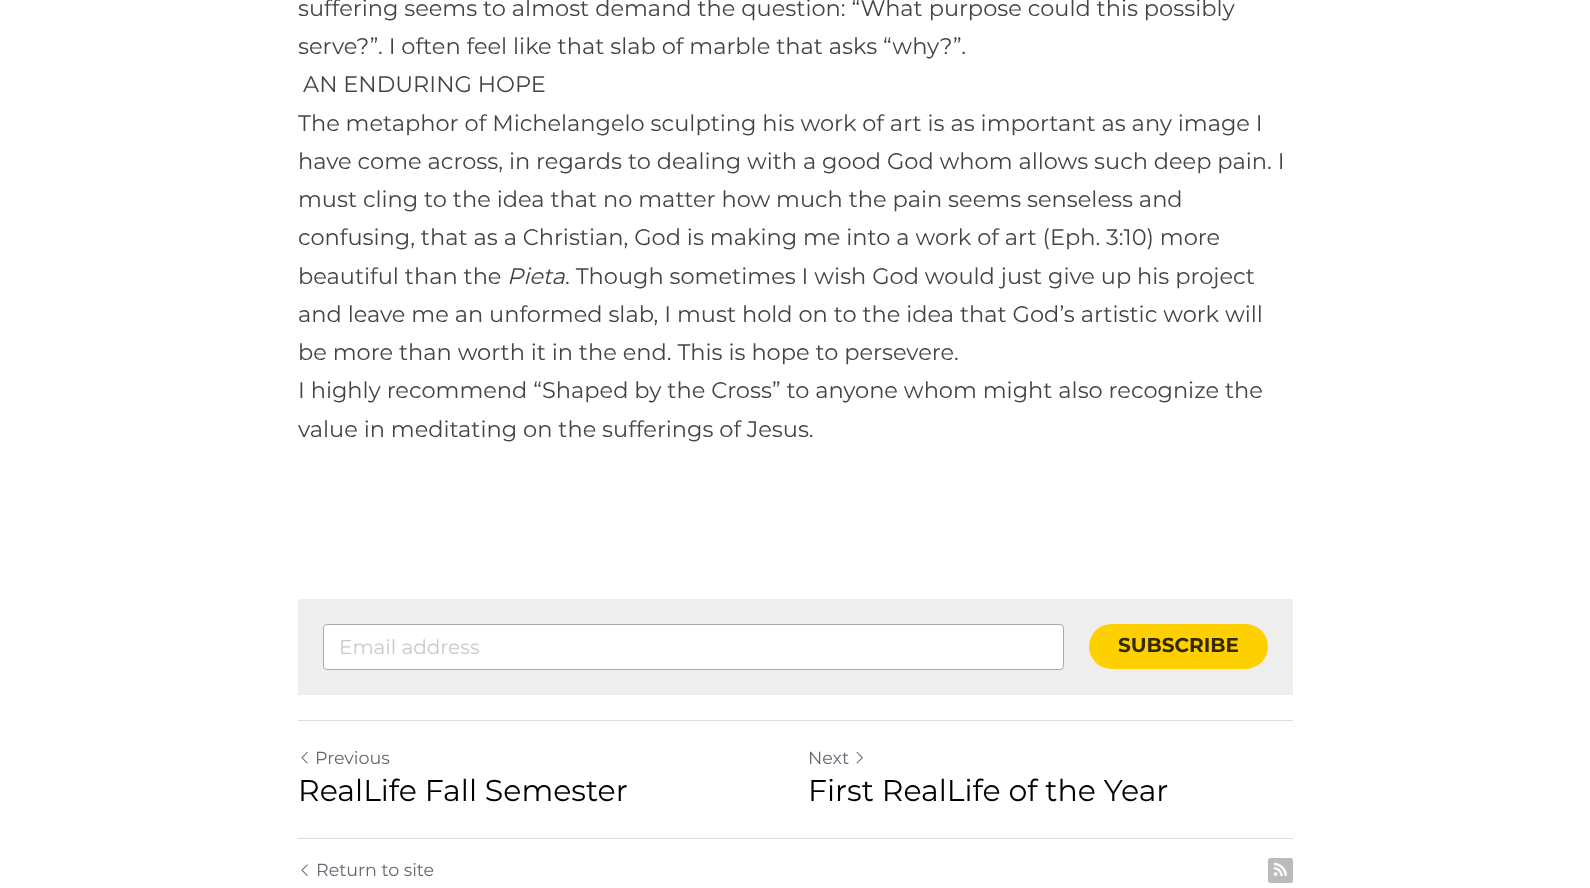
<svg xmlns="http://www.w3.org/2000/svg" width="1590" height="888">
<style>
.a{font:22.5px Montserrat;fill:#444}
.b{font:italic 22.5px Montserrat;fill:#444}
.c{font:20px Montserrat;fill:#c6c9cd}
.d{font:bold 20px Montserrat;fill:#332a00}
.e{font:17.5px Montserrat;fill:#636972}
.f{font:30px Montserrat;fill:#000}
</style>
<rect width="100%" height="100%" fill="#fff"/>
<path fill="#eee" d="M298 599h995v96H298z"/>
<rect fill="#fff" stroke="#aaa" x="323.5" y="624.5" width="740" height="45" rx="3.5"/>
<rect fill="#ffd000" x="1089" y="624" width="179" height="45" rx="22.5"/>
<path fill="#ddd" d="M298 720h995v1H298z"/>
<image href="1.png" x="301" y="751" width="7" height="13"/>
<image href="2.png" x="856" y="751" width="7" height="13"/>
<path fill="#ddd" d="M298 838h995v1H298z"/>
<image href="3.png" x="301" y="864" width="7" height="12"/>
<rect fill="#bbb" x="1268" y="858" width="25" height="25" rx="2.5"/>
<image href="4.png" x="1273" y="862" width="14" height="14"/>
<text class="a" x="298" y="16">suffering seems to almost demand the question: “What purpose could this possibly</text>
<text class="a" x="298" y="54">serve?”. I often feel like that slab of marble that asks “why?”.</text>
<text class="a" x="303" y="92">AN ENDURING HOPE</text>
<text class="a" x="298" y="131">The metaphor of Michelangelo sculpting his work of art is as important as any image I</text>
<text class="a" x="298" y="169">have come across, in regards to dealing with a good God whom allows such deep pain. I</text>
<text class="a" x="298" y="207">must cling to the idea that no matter how much the pain seems senseless and</text>
<text class="a" x="298" y="245">confusing, that as a Christian, God is making me into a work of art (Eph. 3:10) more</text>
<text class="a" x="298" y="284">beautiful than the</text>
<text class="b" x="507" y="284">Pieta</text>
<text class="a" x="565" y="284">. Though sometimes I wish God would just give up his project</text>
<text class="a" x="298" y="322">and leave me an unformed slab, I must hold on to the idea that God’s artistic work will</text>
<text class="a" x="298" y="360">be more than worth it in the end. This is hope to persevere.</text>
<text class="a" x="298" y="398">I highly recommend “Shaped by the Cross” to anyone whom might also recognize the</text>
<text class="a" x="298" y="437">value in meditating on the sufferings of Jesus.</text>
<text class="c" x="339" y="654">Email address</text>
<text class="d" x="1118" y="652">SUBSCRIBE</text>
<text class="e" x="315" y="764">Previous</text>
<text class="f" x="298" y="801">RealLife Fall Semester</text>
<text class="e" x="808" y="764">Next</text>
<text class="f" x="808" y="801">First RealLife of the Year</text>
<text class="e" x="316" y="876">Return to site</text>
</svg>
